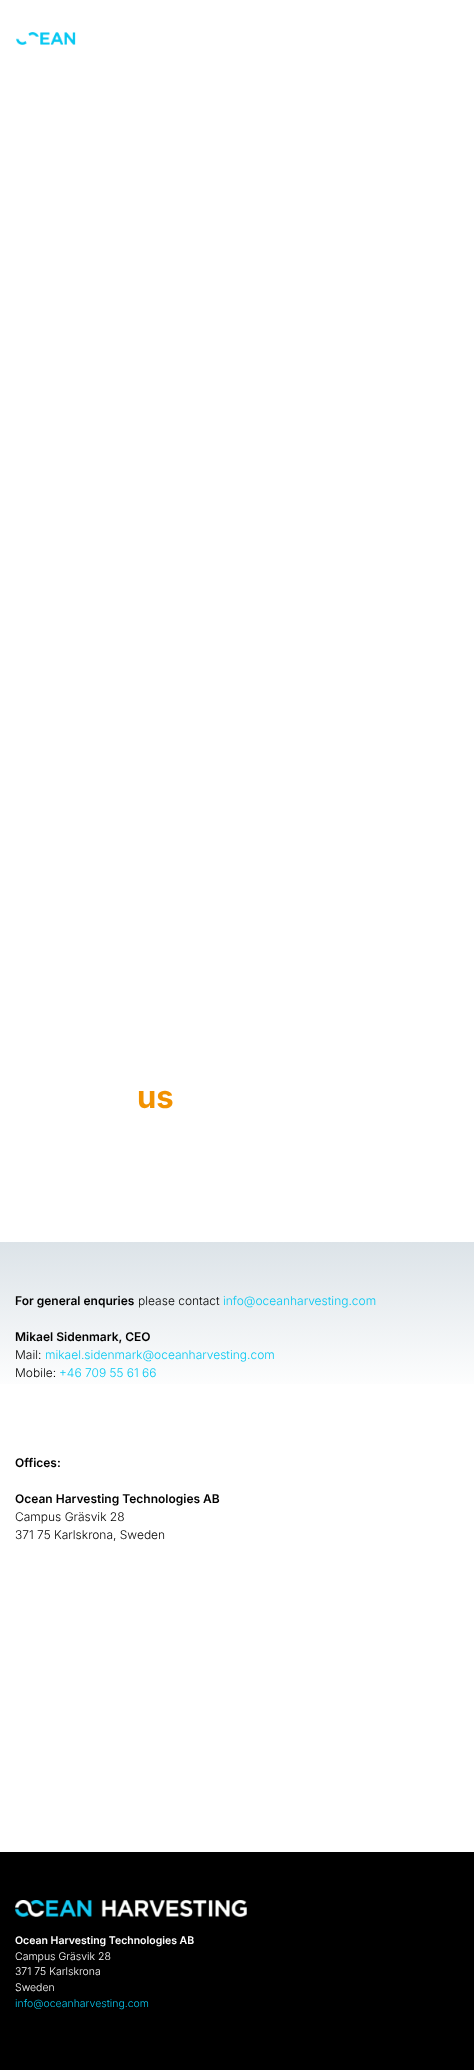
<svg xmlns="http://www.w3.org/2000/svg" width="474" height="2070">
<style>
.a{font:bold 31px Inter;fill:#f29200}
.b{font:600 12px Inter;fill:#000}
.c{font:300 12px Inter;fill:#000}
.d{font:300 12px Inter;fill:#08c8f1}
.e{font:600 10.5px Inter;fill:#fff}
.f{font:300 10.5px Inter;fill:#fff}
.g{font:300 10.5px Inter;fill:#08c8f1}
</style>
<defs>
<linearGradient id="g1" gradientUnits="userSpaceOnUse" x1="237" y1="1242" x2="237" y2="1852"><stop offset="0" stop-color="#dce3e8"/><stop offset="0.25" stop-color="#fff"/></linearGradient>
</defs>
<rect width="100%" height="100%" fill="#fff"/>
<image href="1.png" x="16" y="32" width="60" height="13"/>
<path fill="url(#g1)" d="M0 1242h474v142H0z"/>
<path fill="#000" d="M0 1852h474v218H0z"/>
<image href="2.png" x="15" y="1900" width="232" height="17"/>
<text class="a" x="137" y="1108">us</text>
<text class="b" x="15" y="1305">For general enquries</text>
<text class="c" x="138" y="1305">please contact</text>
<text class="d" x="223" y="1305">info@oceanharvesting.com</text>
<text class="b" x="15" y="1341">Mikael Sidenmark, CEO</text>
<text class="c" x="15" y="1359">Mail:</text>
<text class="d" x="45" y="1359">mikael.sidenmark@oceanharvesting.com</text>
<text class="c" x="15" y="1377">Mobile:</text>
<text class="d" x="59" y="1377">+46 709 55 61 66</text>
<text class="b" x="15" y="1467">Offices:</text>
<text class="b" x="15" y="1503">Ocean Harvesting Technologies AB</text>
<text class="c" x="15" y="1521">Campus Gräsvik 28</text>
<text class="c" x="15" y="1539">371 75 Karlskrona, Sweden</text>
<text class="e" x="15" y="1944">Ocean Harvesting Technologies AB</text>
<text class="f" x="15" y="1960">Campus Gräsvik 28</text>
<text class="f" x="15" y="1975">371 75 Karlskrona</text>
<text class="f" x="15" y="1991">Sweden</text>
<text class="g" x="15" y="2007">info@oceanharvesting.com</text>
</svg>
